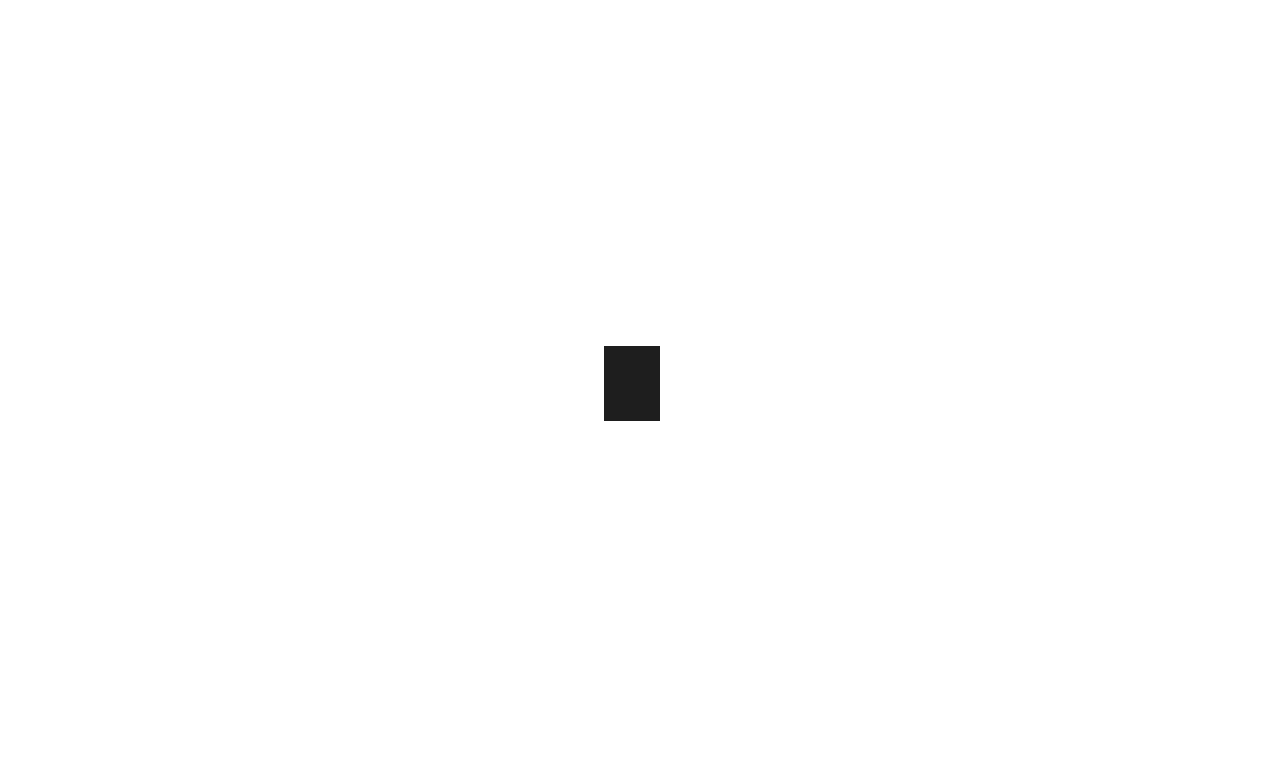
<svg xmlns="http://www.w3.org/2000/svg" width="1262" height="766">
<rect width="100%" height="100%" fill="#fff"/>
<path fill="#1e1e1e" d="M604 346h56v75H604z"/>
</svg>
